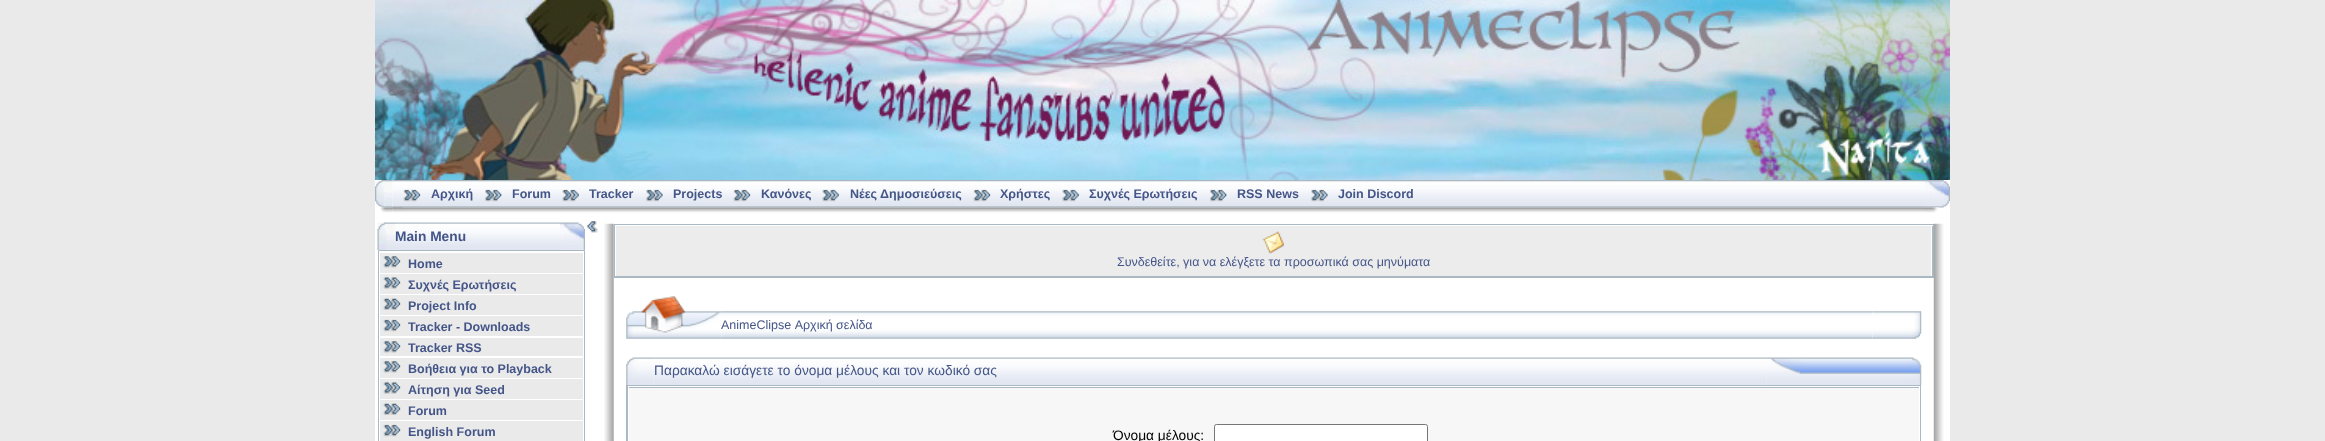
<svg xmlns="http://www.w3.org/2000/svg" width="2325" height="441">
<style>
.a{font:bold 12.5px Liberation Sans;fill:#458}
.b{font:bold 13.75px Liberation Sans;fill:#458}
.c{font:12.5px Liberation Sans;fill:#458}
.d{font:13.75px Liberation Sans;fill:#458}
.e{font:13.75px Liberation Sans;fill:#000}
</style>
<rect width="100%" height="100%" fill="#eaeaea"/>
<path fill="#fff" d="M375 180h1575v261H375z"/>
<image href="1.png" x="375" y="0" width="1575" height="180"/>
<image href="3.png" x="392" y="180" width="1533" height="28"/>
<image href="11.png" x="392" y="207" width="1533" height="6"/>
<image href="2.png" x="375" y="180" width="18" height="28"/>
<image href="4.png" x="403" y="189" width="18" height="13"/>
<image href="5.png" x="485" y="189" width="17" height="13"/>
<image href="6.png" x="562" y="189" width="17" height="13"/>
<image href="7.png" x="646" y="189" width="17" height="13"/>
<image href="4.png" x="733" y="189" width="18" height="13"/>
<image href="6.png" x="822" y="189" width="17" height="13"/>
<image href="4.png" x="973" y="189" width="18" height="13"/>
<image href="8.png" x="1062" y="189" width="17" height="13"/>
<image href="5.png" x="1210" y="189" width="17" height="13"/>
<image href="7.png" x="1311" y="189" width="17" height="13"/>
<image href="9.png" x="1925" y="180" width="25" height="28"/>
<image href="10.png" x="380" y="207" width="13" height="6"/>
<image href="12.png" x="392" y="207" width="11" height="4"/>
<image href="13.png" x="1925" y="207" width="14" height="6"/>
<image href="14.png" x="587" y="221" width="11" height="12"/>
<image href="15.png" x="377" y="222" width="18" height="28"/>
<image href="16.png" x="395" y="222" width="165" height="28"/>
<image href="17.png" x="560" y="222" width="25" height="28"/>
<path fill="none" stroke="#a9b8c2" d="M378.5 250.5h206v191H378.5z"/>
<path fill="#eaeaea" d="M380 253h203v20H380z"/>
<image href="18.png" x="383" y="256" width="18" height="12"/>
<path fill="#eaeaea" d="M380 274h203v20H380z"/>
<image href="19.png" x="383" y="277" width="18" height="12"/>
<path fill="#eaeaea" d="M380 295h203v20H380z"/>
<image href="20.png" x="383" y="298" width="18" height="12"/>
<path fill="#eaeaea" d="M380 316h203v20H380z"/>
<image href="21.png" x="383" y="319" width="18" height="13"/>
<path fill="#eaeaea" d="M380 338h203v18H380z"/>
<image href="18.png" x="383" y="341" width="18" height="12"/>
<path fill="#eaeaea" d="M380 358h203v20H380z"/>
<image href="18.png" x="383" y="361" width="18" height="12"/>
<path fill="#eaeaea" d="M380 379h203v20H380z"/>
<image href="19.png" x="383" y="382" width="18" height="12"/>
<path fill="#eaeaea" d="M380 400h203v20H380z"/>
<image href="20.png" x="383" y="403" width="18" height="12"/>
<path fill="#eaeaea" d="M380 421h203v20H380z"/>
<image href="21.png" x="383" y="424" width="18" height="13"/>
<image href="22.png" x="604" y="223" width="10" height="218"/>
<path fill="#a9b8c2" d="M614 224h1320v54H614z"/>
<path fill="#ececec" d="M616 226h1315v50H616z"/>
<path fill="#fff" d="M615 225h1318v1H615z"/>
<path fill="#fff" d="M1931 225h1v51H1931z"/>
<path fill="#fff" d="M615 225h1v51H615z"/>
<image href="23.png" x="1262" y="231" width="22" height="23"/>
<image href="24.png" x="626" y="296" width="96" height="43"/>
<image href="25.png" x="721" y="311" width="1152" height="28"/>
<image href="26.png" x="1872" y="311" width="50" height="28"/>
<image href="27.png" x="626" y="357" width="28" height="28"/>
<image href="28.png" x="653" y="357" width="1114" height="28"/>
<image href="29.png" x="1766" y="357" width="156" height="28"/>
<path fill="#a9b8c2" d="M626 385h1295v56H626z"/>
<path fill="#f7f7f7" d="M629 388h1290v53H629z"/>
<path fill="#fff" d="M628 386h1292v1H628z"/>
<path fill="#fff" d="M1919 386h1v55H1919z"/>
<path fill="#fff" d="M628 386h1v55H628z"/>
<rect fill="#fff" stroke="#767676" x="1214.5" y="424.5" width="213" height="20" rx="2"/>
<image href="30.png" x="1933" y="223" width="11" height="218"/>
<text class="a" x="431" y="198">Αρχική</text>
<text class="a" x="512" y="198">Forum</text>
<text class="a" x="589" y="198">Tracker</text>
<text class="a" x="673" y="198">Projects</text>
<text class="a" x="761" y="198">Κανόνες</text>
<text class="a" x="850" y="198">Νέες Δημοσιεύσεις</text>
<text class="a" x="1000" y="198">Χρήστες</text>
<text class="a" x="1089" y="198">Συχνές Ερωτήσεις</text>
<text class="a" x="1237" y="198">RSS News</text>
<text class="a" x="1338" y="198">Join Discord</text>
<text class="b" x="395" y="241">Main Menu</text>
<text class="a" x="408" y="268">Home</text>
<text class="a" x="408" y="289">Συχνές Ερωτήσεις</text>
<text class="a" x="408" y="310">Project Info</text>
<text class="a" x="408" y="331">Tracker - Downloads</text>
<text class="a" x="408" y="352">Tracker RSS</text>
<text class="a" x="408" y="373">Βοήθεια για το Playback</text>
<text class="a" x="408" y="394">Αίτηση για Seed</text>
<text class="a" x="408" y="415">Forum</text>
<text class="a" x="408" y="436">English Forum</text>
<text class="c" x="1117" y="266">Συνδεθείτε, για να ελέγξετε τα προσωπικά σας μηνύματα</text>
<text class="c" x="721" y="329">AnimeClipse Αρχική σελίδα</text>
<text class="d" x="654" y="375">Παρακαλώ εισάγετε το όνομα μέλους και τον κωδικό σας</text>
<text class="e" x="1113" y="440">Όνομα μέλους:</text>
</svg>
